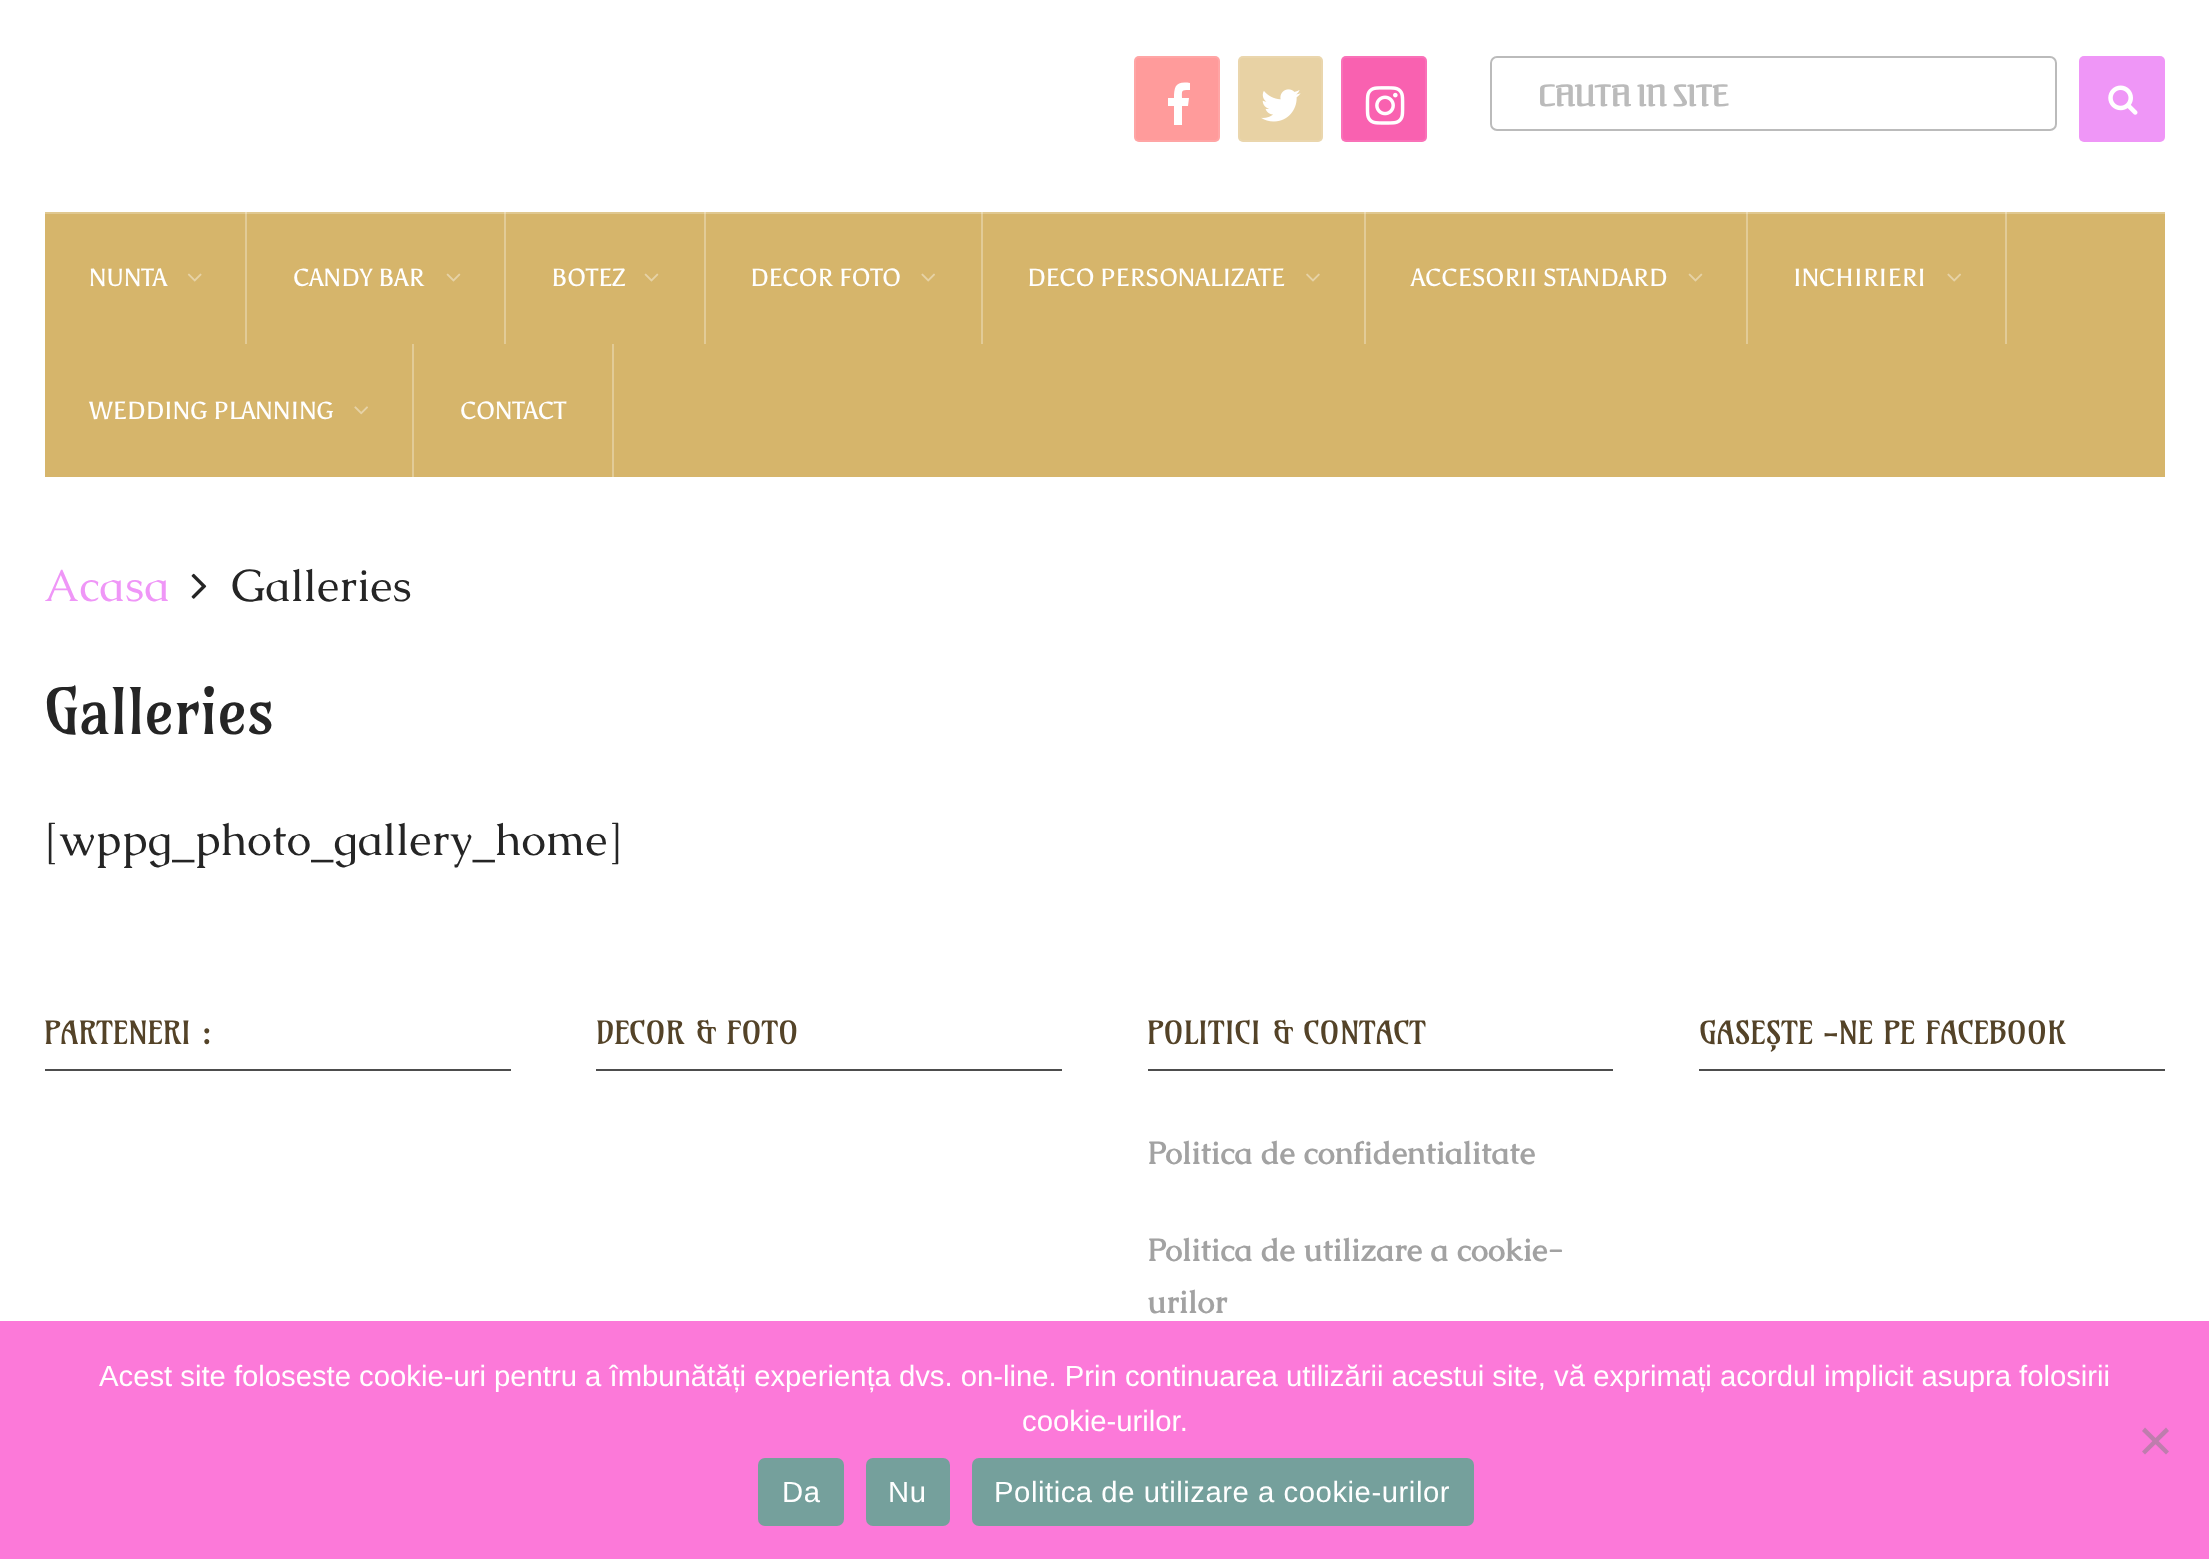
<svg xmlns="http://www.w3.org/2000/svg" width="2209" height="1559">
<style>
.a{font:bold 29.25px Federant;fill:#bbb}
.b{font:24.75px Asul;fill:#fff}
.c{font:45px Caudex;fill:#ef96f7}
.d{font:45px Caudex;fill:#252525}
.e{font:63px Amarante;fill:#252525}
.f{font:31.5px Amarante;fill:#544328}
.g{font:bold 31.5px Caudex;fill:#a2a2a2}
.h{font:29.25px Liberation Sans;fill:#fff}
.i{font:29.25px Liberation Sans;letter-spacing:0.55px;fill:#fff}
</style>
<rect width="100%" height="100%" fill="#fff"/>
<rect fill="#ff9b9b" x="1134" y="56" width="86" height="86" rx="5"/>
<rect fill="none" stroke="#ffffff1a" stroke-width="2" x="1135" y="57" width="84" height="84" rx="4"/>
<path fill="#fff" d="M1190 83c-14-2-16 3-16 15h-6v8h6v19h8v-19h6l1-8h-7c0-8-1-8 8-8z"/>
<rect fill="#e8d2a4" x="1238" y="56" width="85" height="86" rx="5"/>
<rect fill="none" stroke="#ffffff1a" stroke-width="2" x="1239" y="57" width="83" height="84" rx="4"/>
<image href="1.png" x="1261" y="89" width="40" height="33"/>
<rect fill="#f961b0" x="1341" y="56" width="86" height="86" rx="5"/>
<rect fill="none" stroke="#ffffff1a" stroke-width="2" x="1342" y="57" width="84" height="84" rx="4"/>
<image href="2.png" x="1365" y="86" width="40" height="39"/>
<rect fill="none" stroke="#bbb" stroke-width="2" x="1491" y="57" width="565" height="73" rx="6"/>
<rect fill="#ef96f7" x="2079" y="56" width="86" height="86" rx="5"/>
<image href="3.png" x="2108" y="85" width="30" height="30"/>
<path fill="#d6b56b" d="M45 214h2120v263H45z"/>
<path fill="#e2cb97" d="M2005 212h2v132H2005z"/>
<path fill="#e2cb97" d="M1746 212h2v132H1746z"/>
<path fill="#e2cb97" d="M1364 212h2v132H1364z"/>
<path fill="#e2cb97" d="M981 212h2v132H981z"/>
<path fill="#e2cb97" d="M704 212h2v132H704z"/>
<path fill="#e2cb97" d="M504 212h2v132H504z"/>
<path fill="#e2cb97" d="M245 212h2v132H245z"/>
<path fill="#e0c890" d="M45 212h2120v2H45z"/>
<path fill="#e9d9b1" d="M2005 212h2v2H2005z"/>
<path fill="#e9d9b1" d="M1746 212h2v2H1746z"/>
<path fill="#e9d9b1" d="M1364 212h2v2H1364z"/>
<path fill="#e9d9b1" d="M981 212h2v2H981z"/>
<path fill="#e9d9b1" d="M704 212h2v2H704z"/>
<path fill="#e9d9b1" d="M504 212h2v2H504z"/>
<path fill="#e9d9b1" d="M245 212h2v2H245z"/>
<image href="4.png" x="187" y="273" width="15" height="9"/>
<image href="5.png" x="446" y="273" width="15" height="9"/>
<image href="5.png" x="644" y="273" width="15" height="9"/>
<image href="6.png" x="921" y="273" width="14" height="9"/>
<image href="7.png" x="1306" y="273" width="14" height="9"/>
<image href="5.png" x="1688" y="273" width="15" height="9"/>
<image href="6.png" x="1947" y="273" width="14" height="9"/>
<path fill="#e2cb97" d="M412 344h2v133H412z"/>
<image href="8.png" x="354" y="406" width="14" height="9"/>
<path fill="#e2cb97" d="M612 344h2v133H612z"/>
<image href="9.png" x="191" y="573" width="16" height="26"/>
<path fill="#4d4d4d" d="M45 1069h466v2H45z"/>
<path fill="#4d4d4d" d="M596 1069h466v2H596z"/>
<path fill="#4d4d4d" d="M1148 1069h465v2H1148z"/>
<path fill="#4d4d4d" d="M1699 1069h466v2H1699z"/>
<path fill="#fc79d9" d="M0 1321h2209v238H0z"/>
<path fill="#be7dad" d="M2166 1427.5l3 3.5l-24 23.5l-3-3z"/>
<path fill="#be7dad" d="M2142 1431l3-3.5l24 24l-3 3z"/>
<rect fill="#75a09c" x="758" y="1458" width="86" height="68" rx="7"/>
<rect fill="#75a09c" x="866" y="1458" width="84" height="68" rx="7"/>
<rect fill="#75a09c" x="972" y="1458" width="502" height="68" rx="7"/>
<text class="a" x="1538" y="106">CAUTA IN SITE</text>
<text class="b" x="89" y="286">NUNTA</text>
<text class="b" x="293" y="286">CANDY BAR</text>
<text class="b" x="551" y="286">BOTEZ</text>
<text class="b" x="750" y="286">DECOR FOTO</text>
<text class="b" x="1027" y="286">DECO PERSONALIZATE</text>
<text class="b" x="1411" y="286">ACCESORII STANDARD</text>
<text class="b" x="1793" y="286">INCHIRIERI</text>
<text class="b" x="89" y="419">WEDDING PLANNING</text>
<text class="b" x="460" y="419">CONTACT</text>
<text class="c" x="44" y="601">Acasa</text>
<text class="d" x="231" y="601">Galleries</text>
<text class="e" x="44" y="734">Galleries</text>
<text class="d" x="44" y="855">[wppg_photo_gallery_home]</text>
<text class="f" x="44" y="1044">PARTENERI :</text>
<text class="f" x="596" y="1044">DECOR &amp; FOTO</text>
<text class="f" x="1147" y="1044">POLITICI &amp; CONTACT</text>
<text class="g" x="1147" y="1164">Politica de confidentialitate</text>
<text class="g" x="1147" y="1261">Politica de utilizare a cookie-</text>
<text class="g" x="1147" y="1313">urilor</text>
<text class="f" x="1699" y="1044">GASEȘTE -NE PE FACEBOOK</text>
<text class="h" x="99" y="1386">Acest site foloseste cookie-uri pentru a îmbunătăți experiența dvs. on-line. Prin continuarea utilizării acestui site, vă exprimați acordul implicit asupra folosirii</text>
<text class="h" x="1022" y="1431">cookie-urilor.</text>
<text class="i" x="782" y="1502">Da</text>
<text class="i" x="888" y="1502">Nu</text>
<text class="i" x="994" y="1502">Politica de utilizare a cookie-urilor</text>
</svg>
